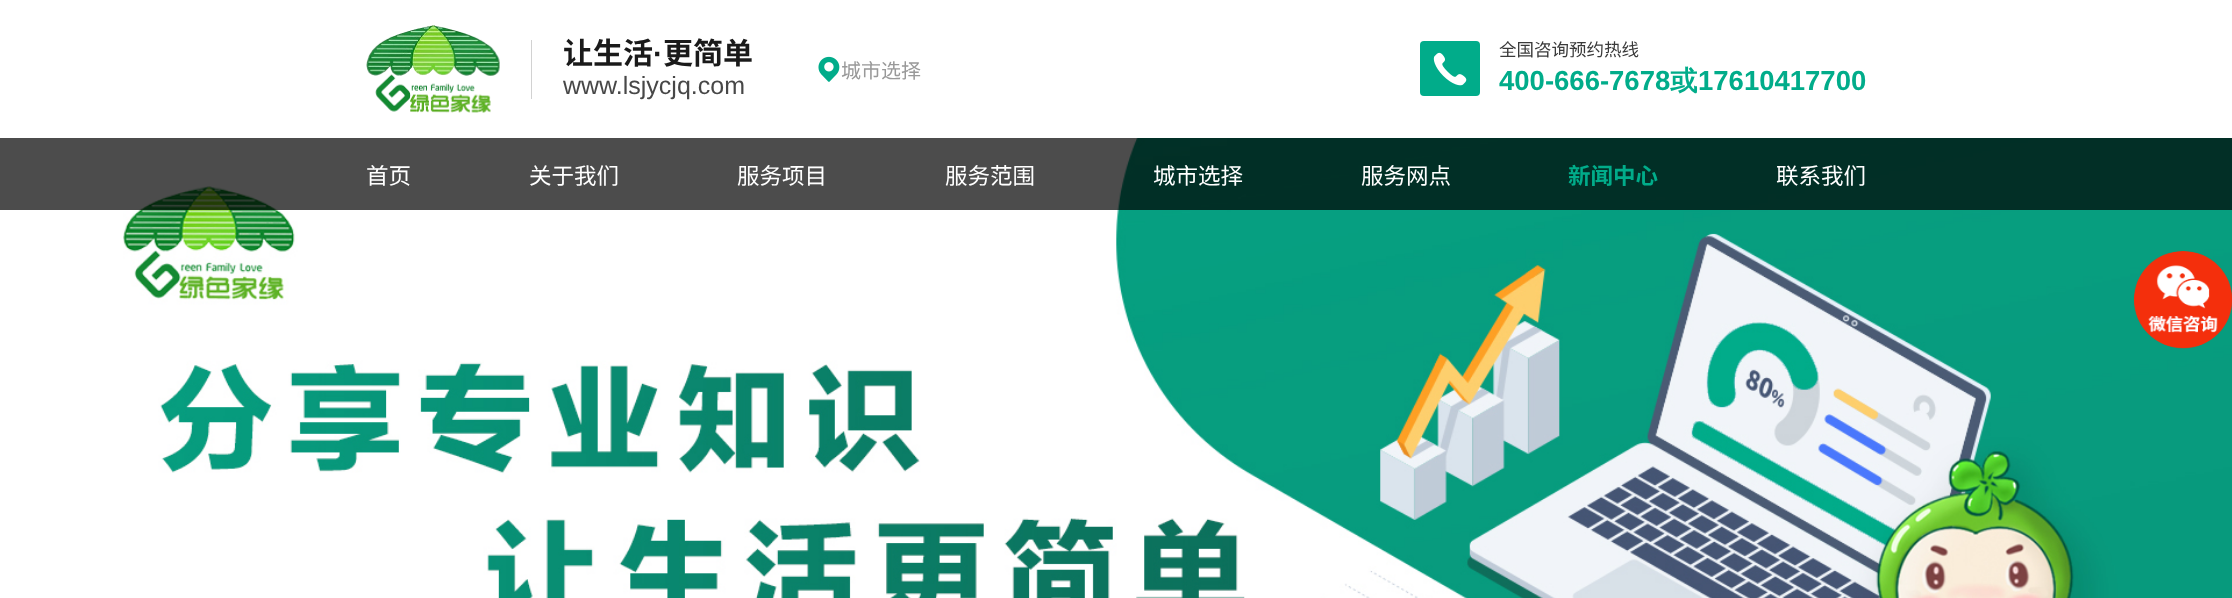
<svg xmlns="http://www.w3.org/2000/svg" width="2232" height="598">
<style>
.a{font:bold 30px Noto Sans CJK SC;fill:#1a1a1a}
.b{font:bold 30px Liberation Sans;fill:#1a1a1a}
.c{font:25px Liberation Sans;fill:#474747}
.d{font:20px Noto Sans CJK SC;fill:#999}
.e{font:17.5px Noto Sans CJK SC;fill:#3a3a3a}
.f{font:bold 27.5px Liberation Sans;fill:#01ac8a}
.g{font:bold 27.5px WenQuanYi Zen Hei;fill:#01ac8a}
.h{font:22.5px Noto Sans CJK SC;fill:#fff}
.i{font:bold 22.5px Noto Sans CJK SC;fill:#01ac8a}
</style>
<rect width="100%" height="100%" fill="#fff"/>
<image href="1.png" x="366" y="25" width="134" height="88"/>
<path fill="#d2d2d2" d="M531 40h1v59H531z"/>
<image href="2.png" x="818" y="56" width="22" height="26"/>
<rect fill="#01ac8a" x="1420" y="41" width="60" height="55" rx="4"/>
<image href="3.png" x="1433" y="52" width="34" height="34"/>
<image href="4.png" x="123" y="138" width="2109" height="460"/>
<path fill="#000000b3" d="M0 138h2232v72H0z"/>
<image href="5.png" x="2133" y="251" width="99" height="98"/>
<text class="a" x="563" y="64">让生活</text>
<text class="b" x="653" y="64">·</text>
<text class="a" x="663" y="64">更简单</text>
<text class="c" x="563" y="94">www.lsjycjq.com</text>
<text class="d" x="841" y="78">城市选择</text>
<text class="e" x="1499" y="56">全国咨询预约热线</text>
<text class="f" x="1499" y="90">400-666-7678</text>
<text class="g" x="1670" y="90">或</text>
<text class="f" x="1698" y="90">17610417700</text>
<text class="h" x="366" y="184">首页</text>
<text class="h" x="529" y="184">关于我们</text>
<text class="h" x="737" y="184">服务项目</text>
<text class="h" x="945" y="184">服务范围</text>
<text class="h" x="1153" y="184">城市选择</text>
<text class="h" x="1361" y="184">服务网点</text>
<text class="i" x="1568" y="184">新闻中心</text>
<text class="h" x="1776" y="184">联系我们</text>
</svg>
